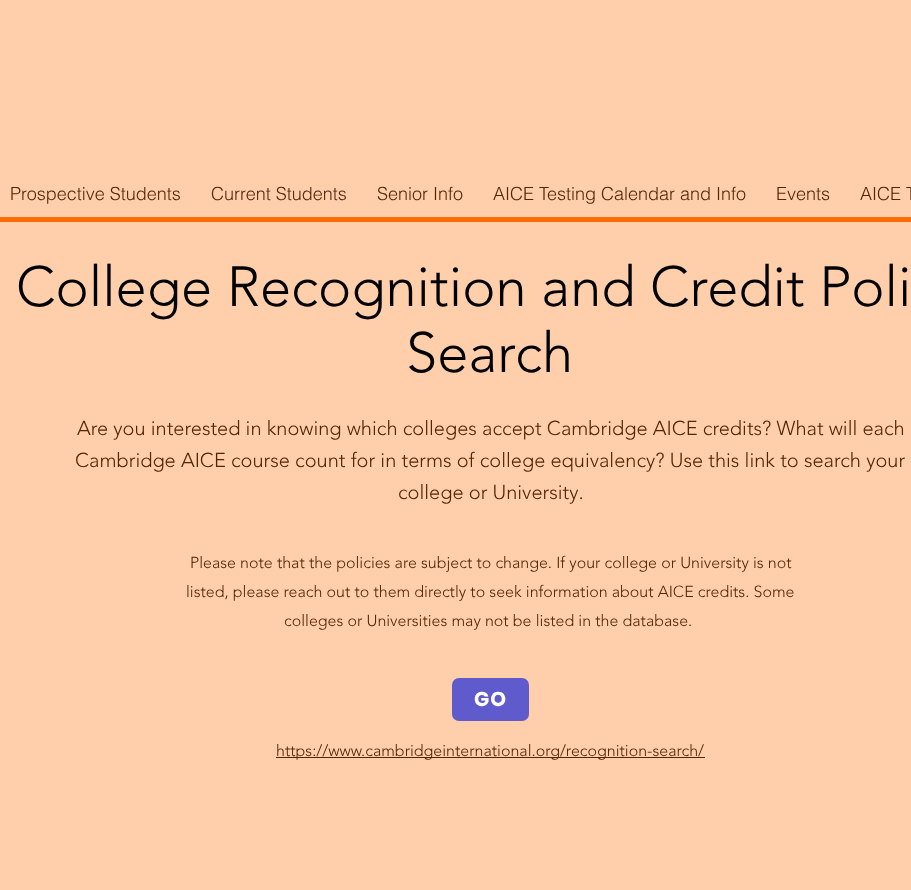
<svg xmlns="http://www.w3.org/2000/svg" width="911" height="890">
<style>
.a{font:300 18px helvetica;fill:#552400}
.b{font:300 18px helvetica;fill:#552311}
.c{font:300 56px 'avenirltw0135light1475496';fill:#000}
.d{font:300 20px 'avenirltw0135light1475496';fill:#552400}
.e{font:300 16px 'avenirltw0135light1475496';fill:#552400}
.f{font:bold 20px Poppins;letter-spacing:1px;fill:#fff}
</style>
<rect width="100%" height="100%" fill="#ffceaa"/>
<path fill="#ff6d00" d="M0 217h911v5H0z"/>
<rect fill="#5f5bcd" x="452" y="678" width="77" height="43" rx="7"/>
<path fill="#552400" d="M276 757h429v1H276z"/>
<text class="a" x="10" y="200">Prospective Students</text>
<text class="b" x="211" y="200">Current Students</text>
<text class="a" x="377" y="200">Senior Info</text>
<text class="a" x="493" y="200">AICE Testing Calendar and Info</text>
<text class="a" x="776" y="200">Events</text>
<text class="a" x="860" y="200">AICE T</text>
<text class="c" x="16" y="306">College Recognition and Credit Poli</text>
<text class="c" x="406" y="372">Search</text>
<text class="d" x="77" y="435">Are you interested in knowing which colleges accept Cambridge AICE credits? What will each</text>
<text class="d" x="75" y="467">Cambridge AICE course count for in terms of college equivalency? Use this link to search your</text>
<text class="d" x="398" y="499">college or University.</text>
<text class="e" x="190" y="568">Please note that the policies are subject to change. If your college or University is not</text>
<text class="e" x="186" y="597">listed, please reach out to them directly to seek information about AICE credits. Some</text>
<text class="e" x="284" y="626">colleges or Universities may not be listed in the database.</text>
<text class="f" x="474" y="706">GO</text>
<text class="e" x="276" y="756">https://www.cambridgeinternational.org/recognition-search/</text>
</svg>
